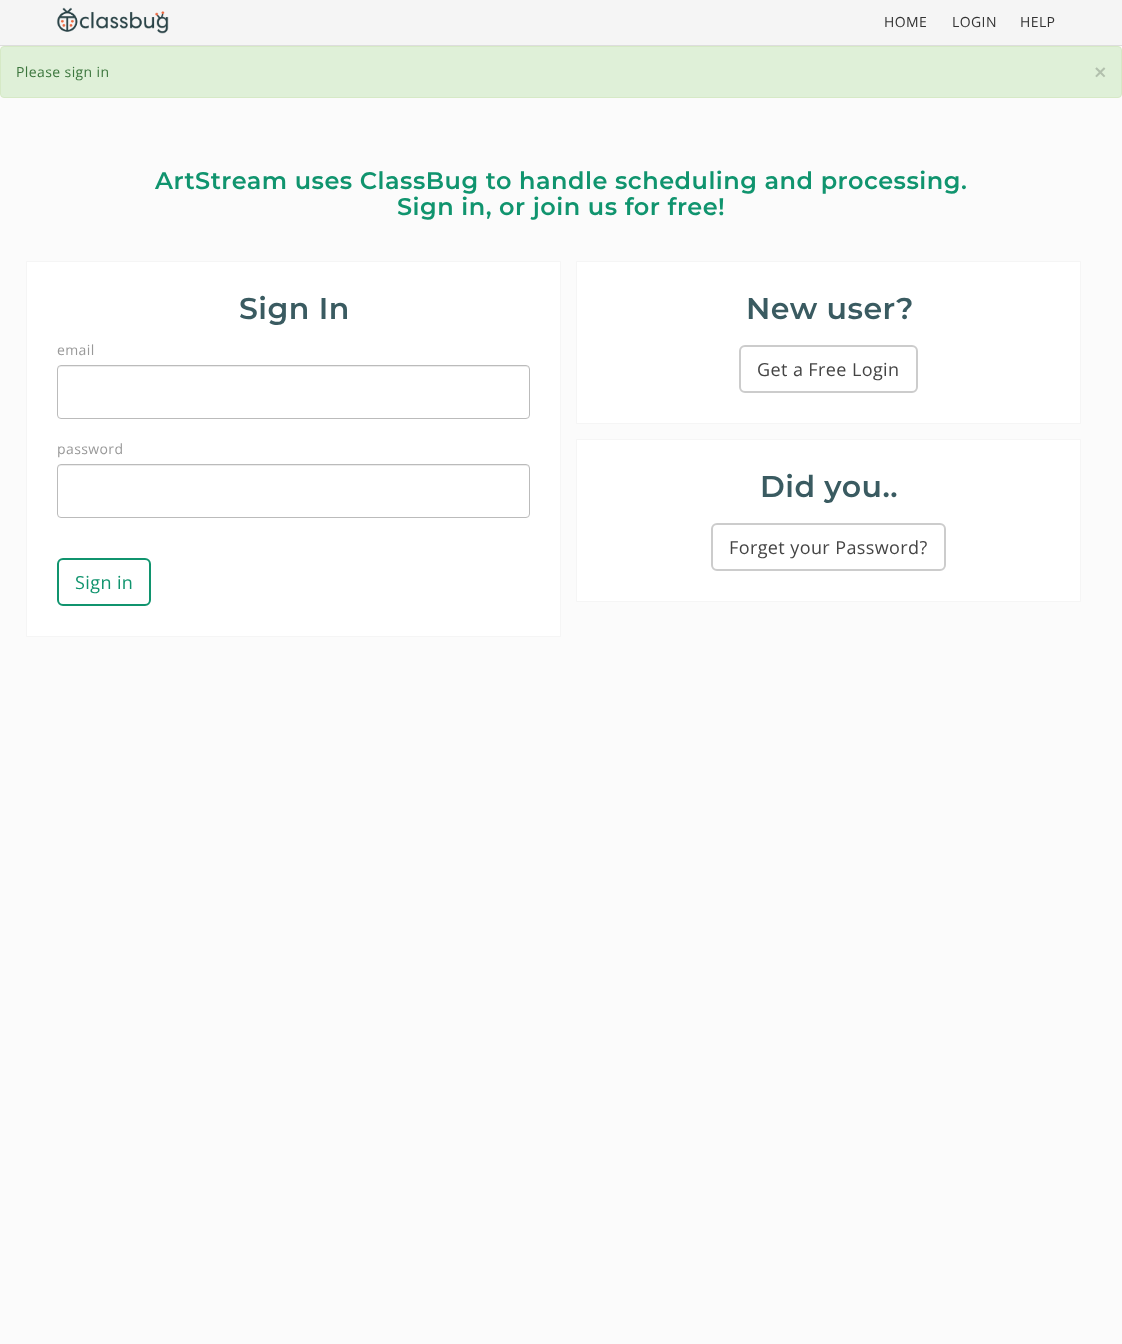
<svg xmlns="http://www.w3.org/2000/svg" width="1122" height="1344">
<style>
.a{font:14px Open Sans;letter-spacing:0.4px;fill:#333}
.b{font:14px Open Sans;letter-spacing:0.4px;fill:#3c763d}
.c{font:bold 21px Open Sans;fill:#b2c0ad}
.d{font:600 24px Montserrat;letter-spacing:0.5px;fill:#10946e}
.e{font:600 30px Montserrat;letter-spacing:0.5px;fill:#3a5b61}
.f{font:14px Open Sans;letter-spacing:0.4px;fill:#999}
.g{font:18px Open Sans;letter-spacing:0.4px;fill:#10946e}
.h{font:18px Open Sans;letter-spacing:0.4px;fill:#444}
</style>
<rect width="100%" height="100%" fill="#fbfbfb"/>
<path fill="#f5f5f5" d="M0 0h1122v45H0z"/>
<path fill="#ddd" d="M0 45h1122v1H0z"/>
<image href="1.png" x="56" y="7" width="113" height="27"/>
<rect fill="#dff0d8" stroke="#d6e9c6" x="0.5" y="46.5" width="1121" height="51" rx="3.5"/>
<path fill="#fff" stroke="#f5f5f5" d="M26.5 261.5h534v375H26.5z"/>
<path fill="#ececec" d="M61 367h465c2 0 3 1 3 3v-1c0-2-1-3-3-3h-465c-2 0-3 1-3 3v1c0-2 1-3 3-3z"/>
<rect fill="none" stroke="#bbb" x="57.5" y="365.5" width="472" height="53" rx="3.5"/>
<path fill="#ececec" d="M61 466h465c2 0 3 1 3 3v-1c0-2-1-3-3-3h-465c-2 0-3 1-3 3v1c0-2 1-3 3-3z"/>
<rect fill="none" stroke="#bbb" x="57.5" y="464.5" width="472" height="53" rx="3.5"/>
<rect fill="none" stroke="#10946e" stroke-width="2" x="58" y="559" width="92" height="46" rx="5"/>
<path fill="#fff" stroke="#f5f5f5" d="M576.5 261.5h504v162H576.5z"/>
<rect fill="none" stroke="#ccc" stroke-width="2" x="740" y="346" width="177" height="46" rx="5"/>
<path fill="#fff" stroke="#f5f5f5" d="M576.5 439.5h504v162H576.5z"/>
<rect fill="none" stroke="#ccc" stroke-width="2" x="712" y="524" width="233" height="46" rx="5"/>
<text class="a" x="884" y="27">HOME</text>
<text class="a" x="952" y="27">LOGIN</text>
<text class="a" x="1020" y="27">HELP</text>
<text class="b" x="16" y="77">Please sign in</text>
<text class="c" x="1094" y="80">×</text>
<text class="d" x="155" y="189">ArtStream uses ClassBug to handle scheduling and processing.</text>
<text class="d" x="397" y="215">Sign in, or join us for free!</text>
<text class="e" x="239" y="319">Sign In</text>
<text class="f" x="57" y="355">email</text>
<text class="f" x="57" y="454">password</text>
<text class="g" x="75" y="589">Sign in</text>
<text class="e" x="746" y="319">New user?</text>
<text class="h" x="757" y="376">Get a Free Login</text>
<text class="e" x="760" y="497">Did you..</text>
<text class="h" x="729" y="554">Forget your Password?</text>
</svg>
